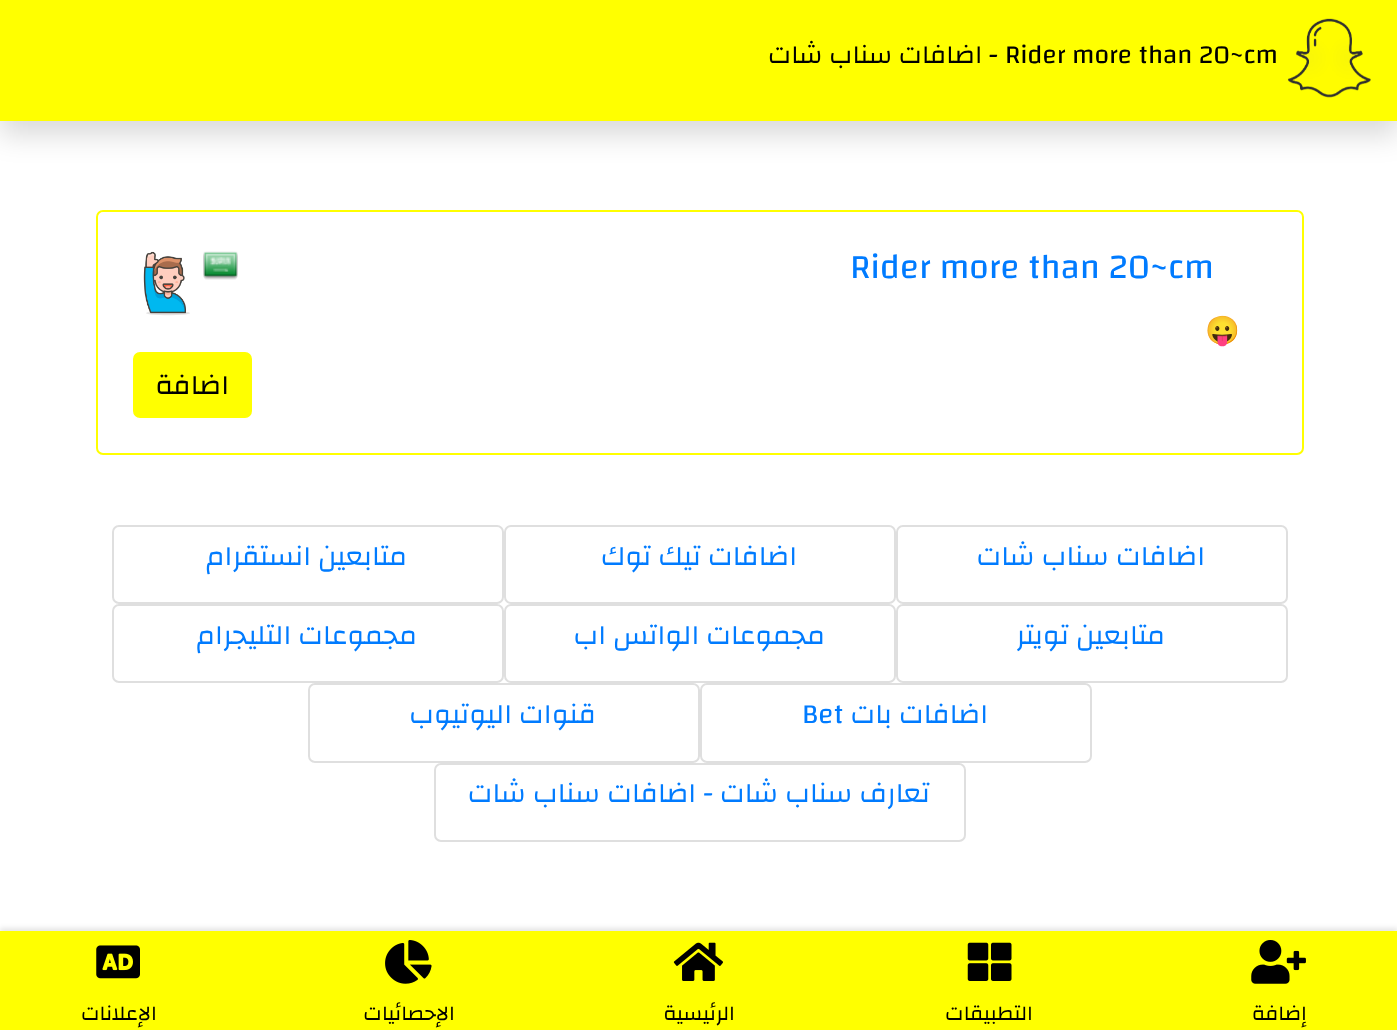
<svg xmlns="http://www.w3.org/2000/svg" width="1397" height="1030">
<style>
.a{font:26.25px Changa;fill:#000}
.b{font:26.25px Changa;direction:rtl;fill:#000}
.c{font:35px Changa;fill:#007bff}
.d{font:28px Noto Color Emoji;fill:#000}
.e{font:28px Changa;direction:rtl;fill:#000}
.f{font:28px Changa;direction:rtl;fill:#007bff}
.g{font:28px Changa;fill:#007bff}
.h{font:21px Changa;direction:rtl;fill:#000}
</style>
<rect width="100%" height="100%" fill="#fff"/>
<path fill="#00000026" filter="blur(14px)" d="M0 14h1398v121H0z"/>
<path fill="#ff0" d="M0 0h1397v121H0z"/>
<image href="1.png" x="1287" y="18" width="84" height="80"/>
<rect fill="none" stroke="#ff0" stroke-width="2" x="97" y="211" width="1206" height="243" rx="6"/>
<image href="2.png" x="203" y="251" width="35" height="29"/>
<image href="3.png" x="143" y="251" width="47" height="65"/>
<rect fill="#ff0" stroke="#ff0" stroke-width="2" x="134" y="353" width="117" height="64" rx="6"/>
<rect fill="none" stroke="#dfdfdf" stroke-width="2" x="897" y="526" width="390" height="77" rx="6"/>
<rect fill="none" stroke="#dfdfdf" stroke-width="2" x="505" y="526" width="390" height="77" rx="6"/>
<rect fill="none" stroke="#dfdfdf" stroke-width="2" x="113" y="526" width="390" height="77" rx="6"/>
<rect fill="none" stroke="#dfdfdf" stroke-width="2" x="897" y="605" width="390" height="77" rx="6"/>
<rect fill="none" stroke="#dfdfdf" stroke-width="2" x="505" y="605" width="390" height="77" rx="6"/>
<rect fill="none" stroke="#dfdfdf" stroke-width="2" x="113" y="605" width="390" height="77" rx="6"/>
<rect fill="none" stroke="#dfdfdf" stroke-width="2" x="701" y="684" width="390" height="78" rx="6"/>
<rect fill="none" stroke="#dfdfdf" stroke-width="2" x="309" y="684" width="390" height="78" rx="6"/>
<rect fill="none" stroke="#dfdfdf" stroke-width="2" x="435" y="764" width="530" height="77" rx="6"/>
<path fill="#0000001a" filter="blur(2.5px)" d="M0 928h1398v99H0z"/>
<path fill="#ff0" d="M0 931h1397v99H0z"/>
<image href="4.png" x="1251" y="940" width="55" height="44"/>
<image href="5.png" x="967" y="942" width="45" height="39"/>
<image href="6.png" x="673" y="942" width="50" height="39"/>
<image href="7.png" x="385" y="940" width="47" height="44"/>
<image href="8.png" x="96" y="945" width="44" height="34"/>
<text class="a" x="1005" y="63">Rider more than 20~cm</text>
<text class="b" x="998" y="63">- اضافات سناب شات</text>
<text class="c" x="850" y="278">Rider more than 20~cm</text>
<text class="d" x="1205" y="340">😛</text>
<text class="e" x="229" y="394">اضافة</text>
<text class="f" x="1205" y="565">اضافات سناب شات</text>
<text class="f" x="797" y="565">اضافات تيك توك</text>
<text class="f" x="407" y="565">متابعين انستقرام</text>
<text class="f" x="1165" y="644">متابعين تويتر</text>
<text class="f" x="825" y="644">مجموعات الواتس اب</text>
<text class="f" x="417" y="644">مجموعات التليجرام</text>
<text class="f" x="988" y="723">اضافات بات</text>
<text class="g" x="802" y="723">Bet</text>
<text class="f" x="596" y="723">قنوات اليوتيوب</text>
<text class="f" x="930" y="802">تعارف سناب شات - اضافات سناب شات</text>
<text class="h" x="1307" y="1020">إضافة</text>
<text class="h" x="1033" y="1020">التطبيقات</text>
<text class="h" x="735" y="1020">الرئيسية</text>
<text class="h" x="455" y="1020">الإحصائيات</text>
<text class="h" x="157" y="1020">الإعلانات</text>
</svg>
